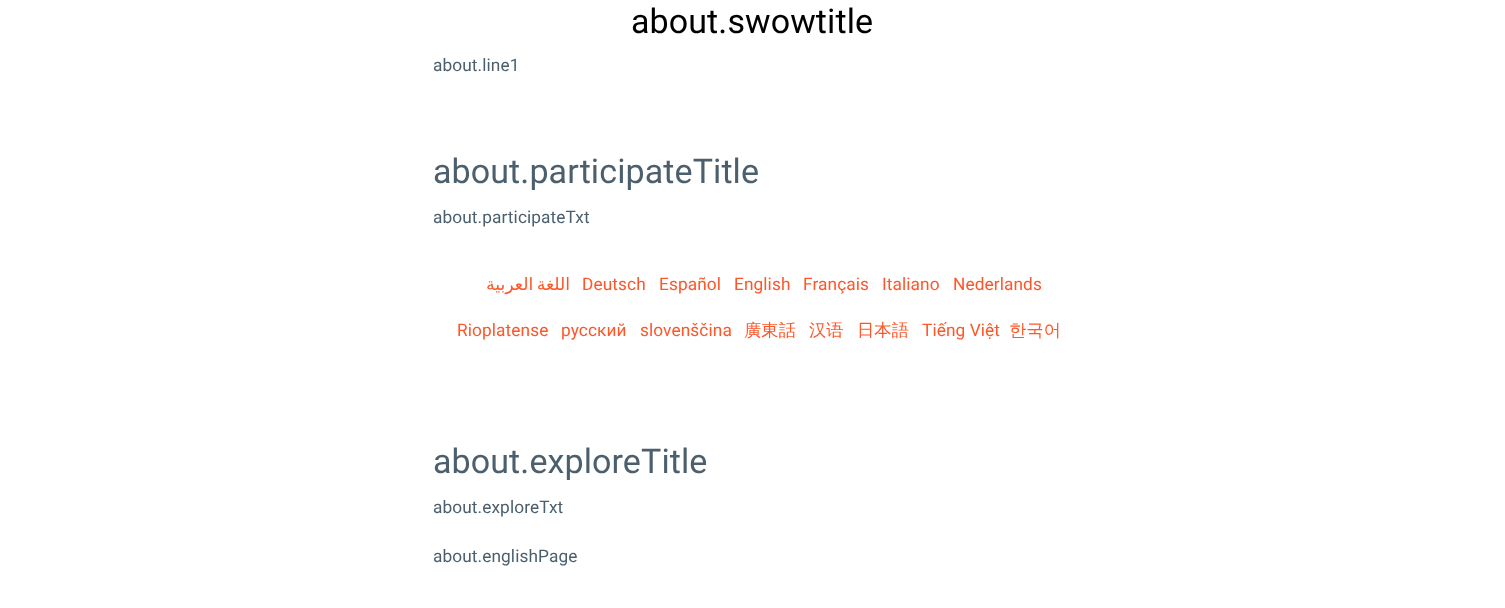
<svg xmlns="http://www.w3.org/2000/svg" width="1505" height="608">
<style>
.a{font:34px Roboto;letter-spacing:0.1px;fill:#000}
.b{font:17.25px Roboto;letter-spacing:0.1px;fill:#4b5f6d}
.c{font:34px Roboto;letter-spacing:0.1px;fill:#4b5f6d}
.d{font:17.25px DejaVu Sans;letter-spacing:0.1px;direction:rtl;fill:#ff5629}
.e{font:17.25px Roboto;letter-spacing:0.1px;fill:#ff5629}
.f{font:500 17.25px WenQuanYi Zen Hei;letter-spacing:0.1px;fill:#ff5629}
</style>
<rect width="100%" height="100%" fill="#fff"/>
<text class="a" x="631" y="33">about.swowtitle</text>
<text class="b" x="433" y="71">about.line1</text>
<text class="c" x="433" y="183">about.participateTitle</text>
<text class="b" x="433" y="223">about.participateTxt</text>
<text class="d" x="570" y="290" word-spacing="-2">اللغة العربية</text>
<text class="e" x="582" y="290">Deutsch</text>
<text class="e" x="659" y="290">Español</text>
<text class="e" x="734" y="290">English</text>
<text class="e" x="803" y="290">Français</text>
<text class="e" x="882" y="290">Italiano</text>
<text class="e" x="953" y="290">Nederlands</text>
<text class="e" x="457" y="336">Rioplatense</text>
<text class="e" x="561" y="336">русский</text>
<text class="e" x="640" y="336">slovenščina</text>
<text class="f" x="744" y="336">廣東話</text>
<text class="f" x="809" y="336">汉语</text>
<text class="f" x="857" y="336">日本語</text>
<text class="e" x="922" y="336">Tiếng Việt</text>
<text class="f" x="1009" y="336">한국어</text>
<text class="c" x="433" y="473">about.exploreTitle</text>
<text class="b" x="433" y="513">about.exploreTxt</text>
<text class="b" x="433" y="562">about.englishPage</text>
</svg>
